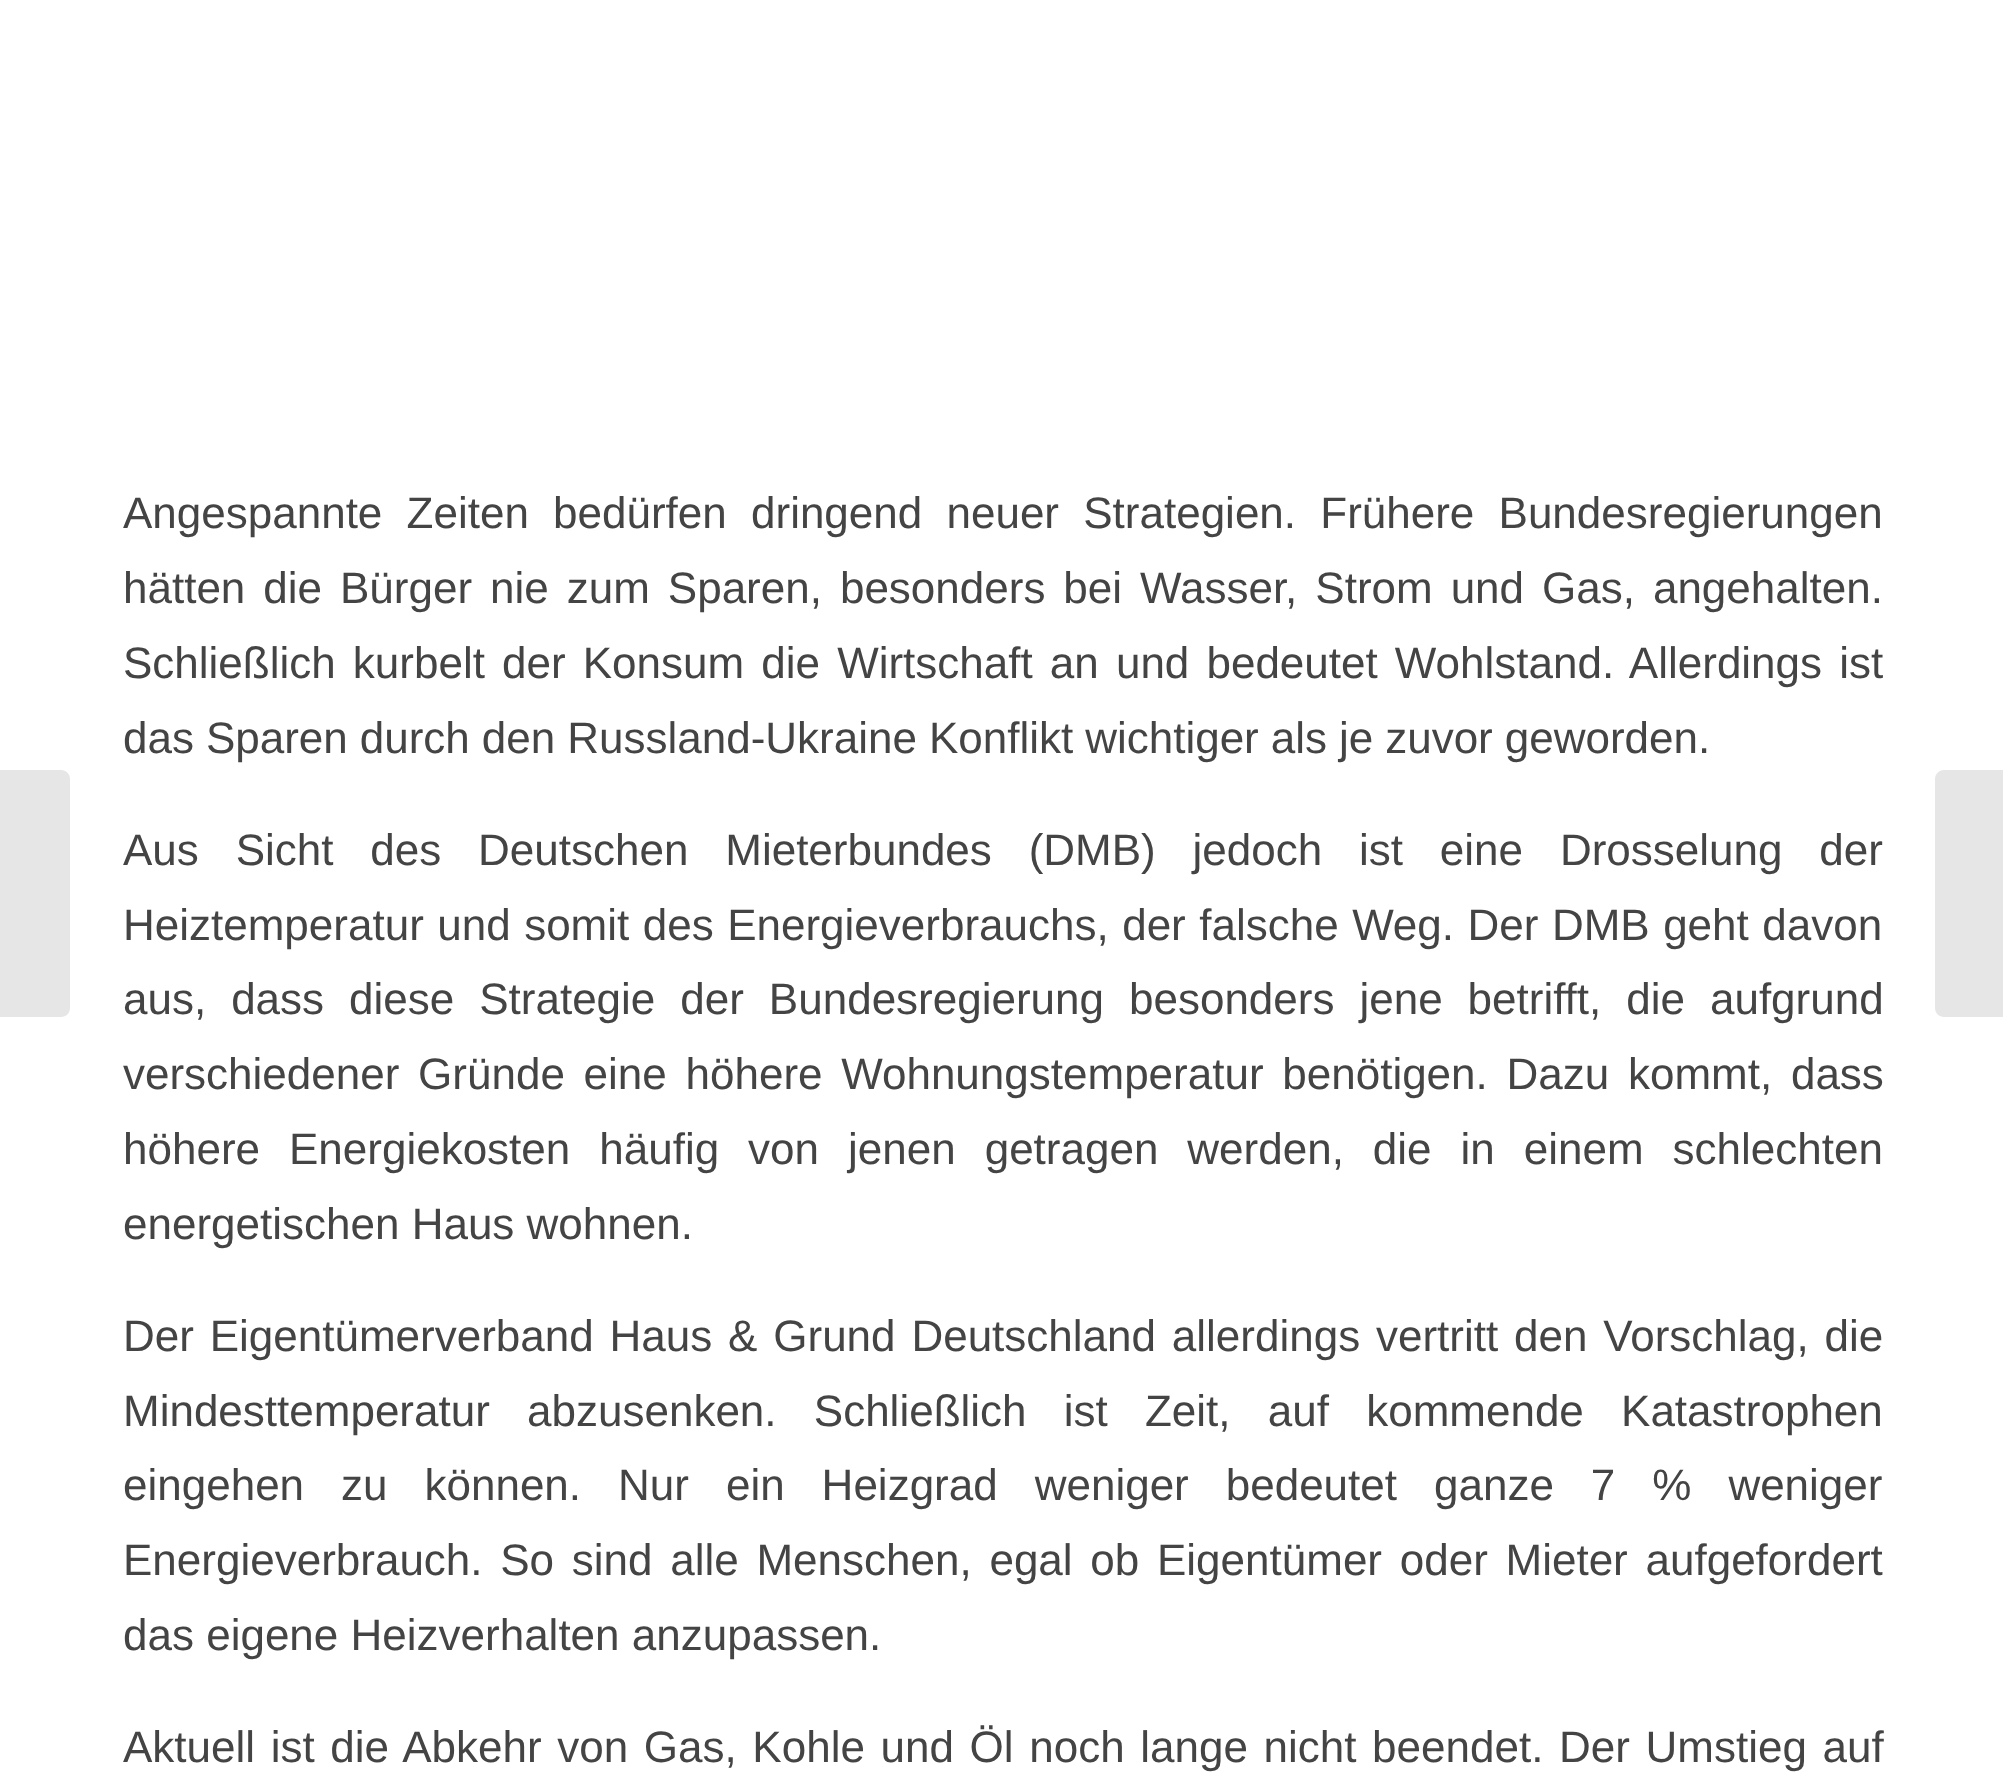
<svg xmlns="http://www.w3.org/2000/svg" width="2003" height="1784">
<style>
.a{font:44px Liberation Sans;fill:#444}
</style>
<rect width="100%" height="100%" fill="#fff"/>
<path fill="#e6e6e6" d="M0 770h61c5 0 9 4 9 9v229c0 5-4 9-9 9h-61z"/>
<path fill="#e6e6e6" d="M1944 770h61v247h-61c-5 0-9-4-9-9v-229c0-5 4-9 9-9z"/>
<text class="a" x="123" y="528" word-spacing="12">Angespannte Zeiten bedürfen dringend neuer Strategien. Frühere Bundesregierungen</text>
<text class="a" x="123" y="603" word-spacing="5.75">hätten die Bürger nie zum Sparen, besonders bei Wasser, Strom und Gas, angehalten.</text>
<text class="a" x="123" y="678" word-spacing="4.9">Schließlich kurbelt der Konsum die Wirtschaft an und bedeutet Wohlstand. Allerdings ist</text>
<text class="a" x="123" y="753" word-spacing="-0.25">das Sparen durch den Russland-Ukraine Konflikt wichtiger als je zuvor geworden.</text>
<text class="a" x="123" y="865" word-spacing="24.6">Aus Sicht des Deutschen Mieterbundes (DMB) jedoch ist eine Drosselung der</text>
<text class="a" x="123" y="940" word-spacing="1.25">Heiztemperatur und somit des Energieverbrauchs, der falsche Weg. Der DMB geht davon</text>
<text class="a" x="123" y="1014" word-spacing="12.75">aus, dass diese Strategie der Bundesregierung besonders jene betrifft, die aufgrund</text>
<text class="a" x="123" y="1089" word-spacing="6.5">verschiedener Gründe eine höhere Wohnungstemperatur benötigen. Dazu kommt, dass</text>
<text class="a" x="123" y="1164" word-spacing="16.75">höhere Energiekosten häufig von jenen getragen werden, die in einem schlechten</text>
<text class="a" x="123" y="1239">energetischen Haus wohnen.</text>
<text class="a" x="123" y="1351" word-spacing="3.6">Der Eigentümerverband Haus &amp; Grund Deutschland allerdings vertritt den Vorschlag, die</text>
<text class="a" x="123" y="1426" word-spacing="25">Mindesttemperatur abzusenken. Schließlich ist Zeit, auf kommende Katastrophen</text>
<text class="a" x="123" y="1500" word-spacing="24.75">eingehen zu können. Nur ein Heizgrad weniger bedeutet ganze 7 % weniger</text>
<text class="a" x="123" y="1575" word-spacing="5.5">Energieverbrauch. So sind alle Menschen, egal ob Eigentümer oder Mieter aufgefordert</text>
<text class="a" x="123" y="1650">das eigene Heizverhalten anzupassen.</text>
<text class="a" x="123" y="1762" word-spacing="3.4">Aktuell ist die Abkehr von Gas, Kohle und Öl noch lange nicht beendet. Der Umstieg auf</text>
</svg>
